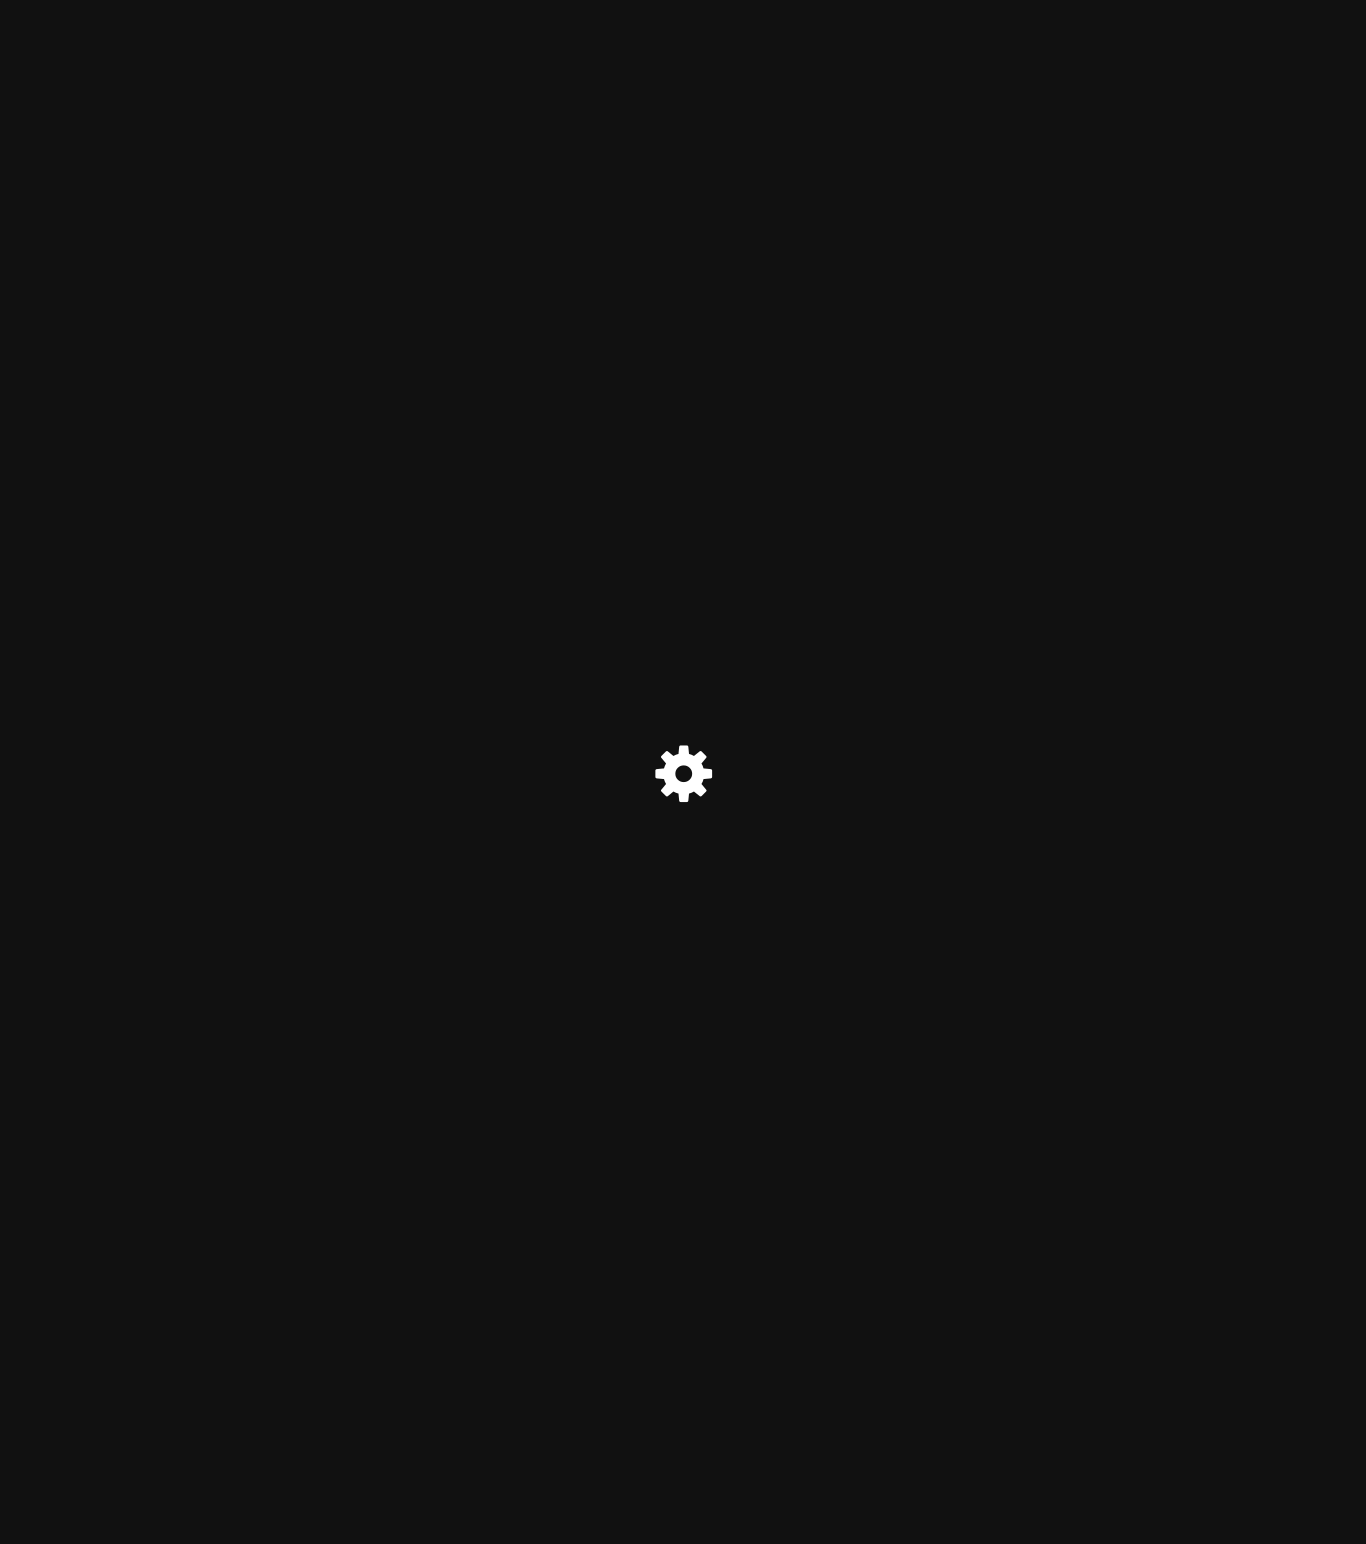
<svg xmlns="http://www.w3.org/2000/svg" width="1366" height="1544">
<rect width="100%" height="100%" fill="#111"/>
<image href="1.png" x="655" y="745" width="58" height="58"/>
</svg>
